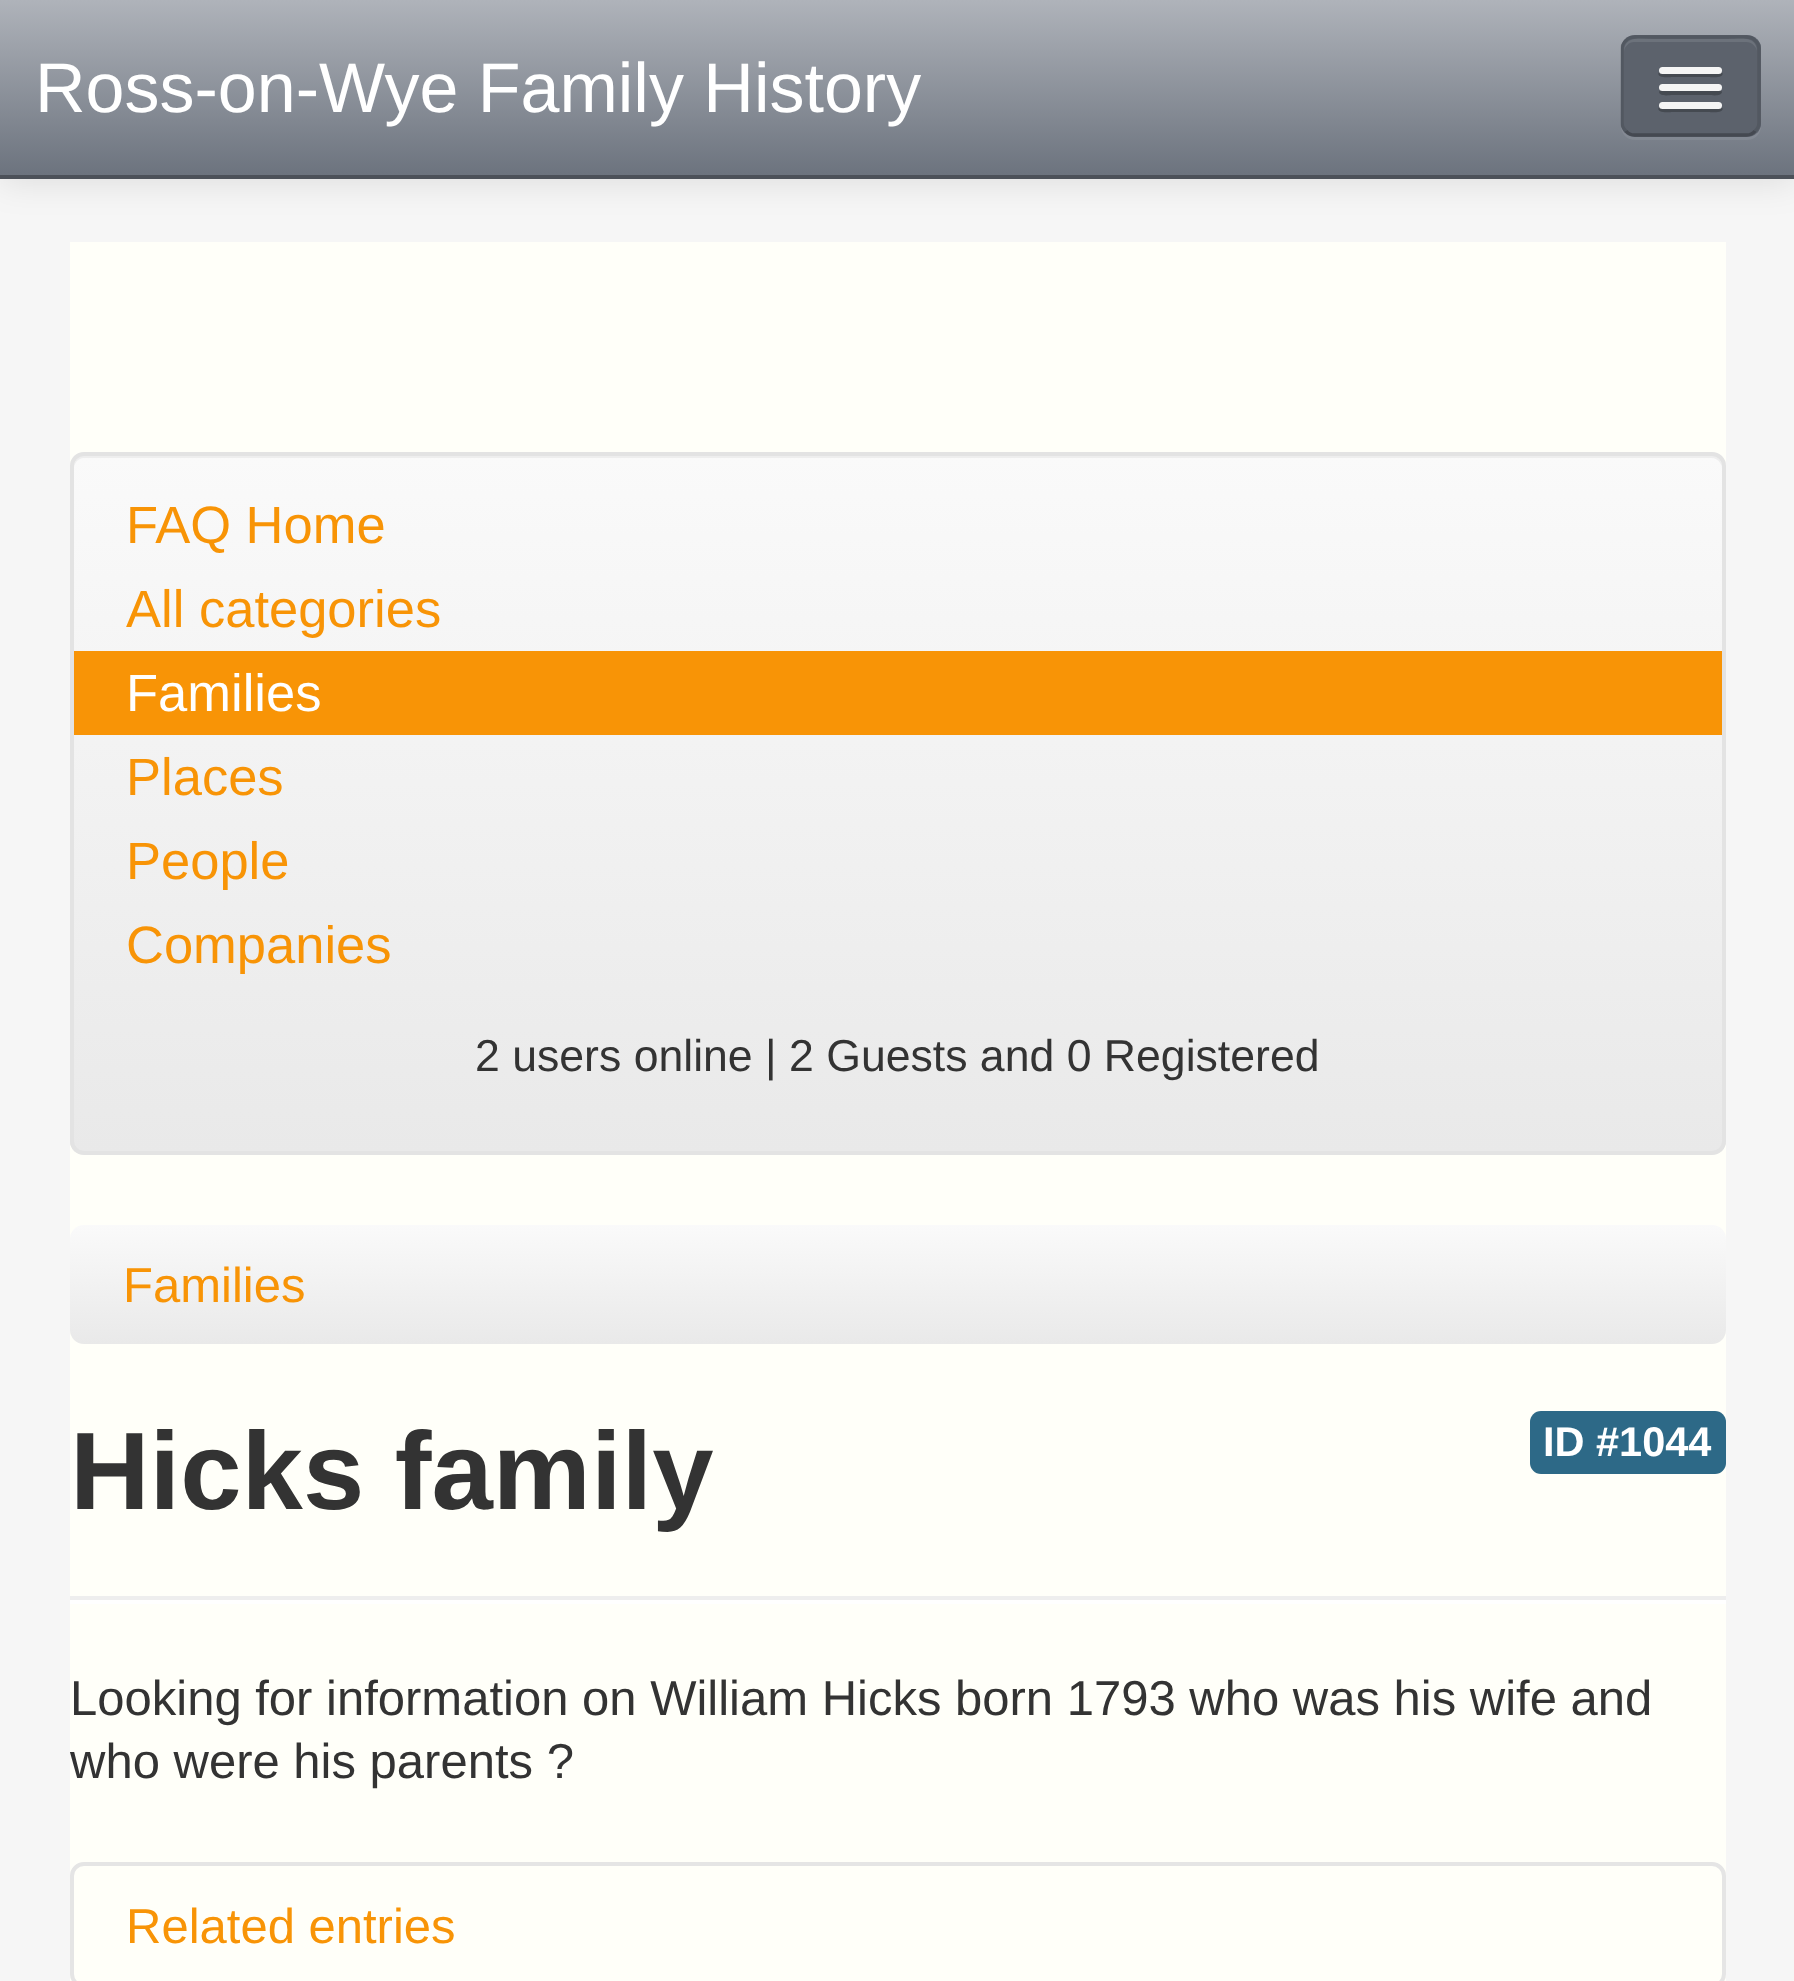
<svg xmlns="http://www.w3.org/2000/svg" width="1794" height="1981">
<style>
.a{font:70px Liberation Sans;fill:#fff}
.b{font:52.5px Liberation Sans;fill:#f89406}
.c{font:52.5px Liberation Sans;fill:#fff}
.d{font:44.6px Liberation Sans;fill:#333}
.e{font:49px Liberation Sans;fill:#f89406}
.f{font:bold 110.25px Liberation Sans;fill:#333}
.g{font:bold 41.5px Liberation Sans;fill:#fff}
.h{font:49px Liberation Sans;fill:#333}
</style>
<defs>
<linearGradient id="g1" gradientUnits="userSpaceOnUse" x1="898" y1="0" x2="898" y2="175"><stop offset="0" stop-color="#afb3ba"/><stop offset="1" stop-color="#6c737e"/></linearGradient>
<clipPath id="clip1"><rect x="1621" y="35" width="140" height="102" rx="14"/></clipPath>
<clipPath id="clip2"><rect x="70" y="452" width="1656" height="703" rx="14"/></clipPath>
<linearGradient id="g2" gradientUnits="userSpaceOnUse" x1="898" y1="455" x2="898" y2="1152"><stop offset="0" stop-color="#fafafa"/><stop offset="1" stop-color="#e9e9e9"/></linearGradient>
<linearGradient id="g3" gradientUnits="userSpaceOnUse" x1="898" y1="1225" x2="898" y2="1344"><stop offset="0" stop-color="#fafafa"/><stop offset="1" stop-color="#e9e9e9"/></linearGradient>
</defs>
<rect width="100%" height="100%" fill="#f6f6f6"/>
<path fill="#0000001a" filter="blur(17.5px)" d="M0 4h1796v178H0z"/>
<path fill="url(#g1)" d="M0 0h1794v175H0z"/>
<path fill="#4c5159" d="M0 175h1794v4H0z"/>
<path fill="#ffffff12" d="M1621 126c0 8 6 14 14 14h112c8 0 14-6 14-14v-73l-1-4v73c0 8-6 14-14 14h-112c-6 0-11-4-13-10z"/>
<rect fill="#5c626c" x="1621" y="35" width="140" height="102" rx="14"/>
<g clip-path="url(#clip1)">
<path fill="#5c626c" d="M1621 39h140v94H1621z"/>
</g>
<path fill="#6c727b" d="M1634 42h112c6 0 11 5 11 10c0-17-17-13-29-13h-74c-13 0-30-4-30 13c0-5 5-10 10-10z"/>
<path fill="none" stroke="#00000040" stroke-width="3.5" d="M1755 131c-2 2.5-5.5 4-8.5 4h-112c-3 0-6.5-1.5-8.5-4"/>
<path fill="none" stroke="#0000001a" stroke-width="3.5" d="M1626 131c-2.5-2-4-5.5-4-8.5v-73.5c0-3 1.5-6.5 4-8.5c2-2.5 5.5-3.5 8.5-3.5h112c3 0 6.5 1 8.5 3.5c2.5 2 4 5.5 4 8.5v73.5c0 3-1.5 6.5-4 8.5"/>
<path fill="#454a51" d="M1659 72c-4 7 12 5 13 5h37c1 0 17 2 13-5c-1 1-2 2-4 2h-56c-1 0-2-1-3-2z"/>
<rect fill="#f5f5f5" x="1659" y="67" width="63" height="7" rx="3.5"/>
<path fill="#454a51" d="M1660 90l-1 2c1 5 11 3 13 3h37c2 0 12 2 13-3l-1-2l-2 1h-57z"/>
<rect fill="#f5f5f5" x="1659" y="84" width="63" height="7" rx="3.5"/>
<path fill="#454a51" d="M1659 107c-4 7 12 5 13 5h37c1 0 17 2 13-5c-1 1-2 1-4 1h-56c-1 0-2 0-3-1z"/>
<rect fill="#f5f5f5" x="1659" y="102" width="63" height="7" rx="3.5"/>
<path fill="#fffff9" d="M70 242h1656v1739H70z"/>
<g clip-path="url(#clip2)">
<path fill="url(#g2)" d="M70 455h1656v697H70z"/>
</g>
<path fill="#eee" d="M84 458h1628c5 0 10 5 10 11c0-7-3-14-11-14h-1626c-8 0-11 7-11 14c0-6 4-11 10-11z"/>
<rect fill="none" stroke="#e3e3e3" stroke-width="4" x="72" y="454" width="1652" height="699" rx="12"/>
<path fill="#f89406" d="M74 651h1648v84H74z"/>
<rect fill="url(#g3)" x="70" y="1225" width="1656" height="119" rx="14"/>
<rect fill="#2d6987" x="1530" y="1411" width="196" height="63" rx="11"/>
<path fill="#eee" d="M70 1596h1656v4H70z"/>
<path fill="#fff" d="M70 1600h1656v4H70z"/>
<rect fill="none" stroke="#e5e5e5" stroke-width="4" x="72" y="1864" width="1652" height="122" rx="12"/>
<text class="a" x="35" y="112">Ross-on-Wye Family History</text>
<text class="b" x="126" y="543">FAQ Home</text>
<text class="b" x="126" y="627">All categories</text>
<text class="c" x="126" y="711">Families</text>
<text class="b" x="126" y="795">Places</text>
<text class="b" x="126" y="879">People</text>
<text class="b" x="126" y="963">Companies</text>
<text class="d" x="475" y="1071">2 users online | 2 Guests and 0 Registered</text>
<text class="e" x="123" y="1302">Families</text>
<text class="f" x="70" y="1509">Hicks family</text>
<text class="g" x="1543" y="1456">ID #1044</text>
<text class="h" x="70" y="1715">Looking for information on William Hicks born 1793 who was his wife and</text>
<text class="h" x="70" y="1778">who were his parents ?</text>
<text class="e" x="126" y="1943">Related entries</text>
</svg>
